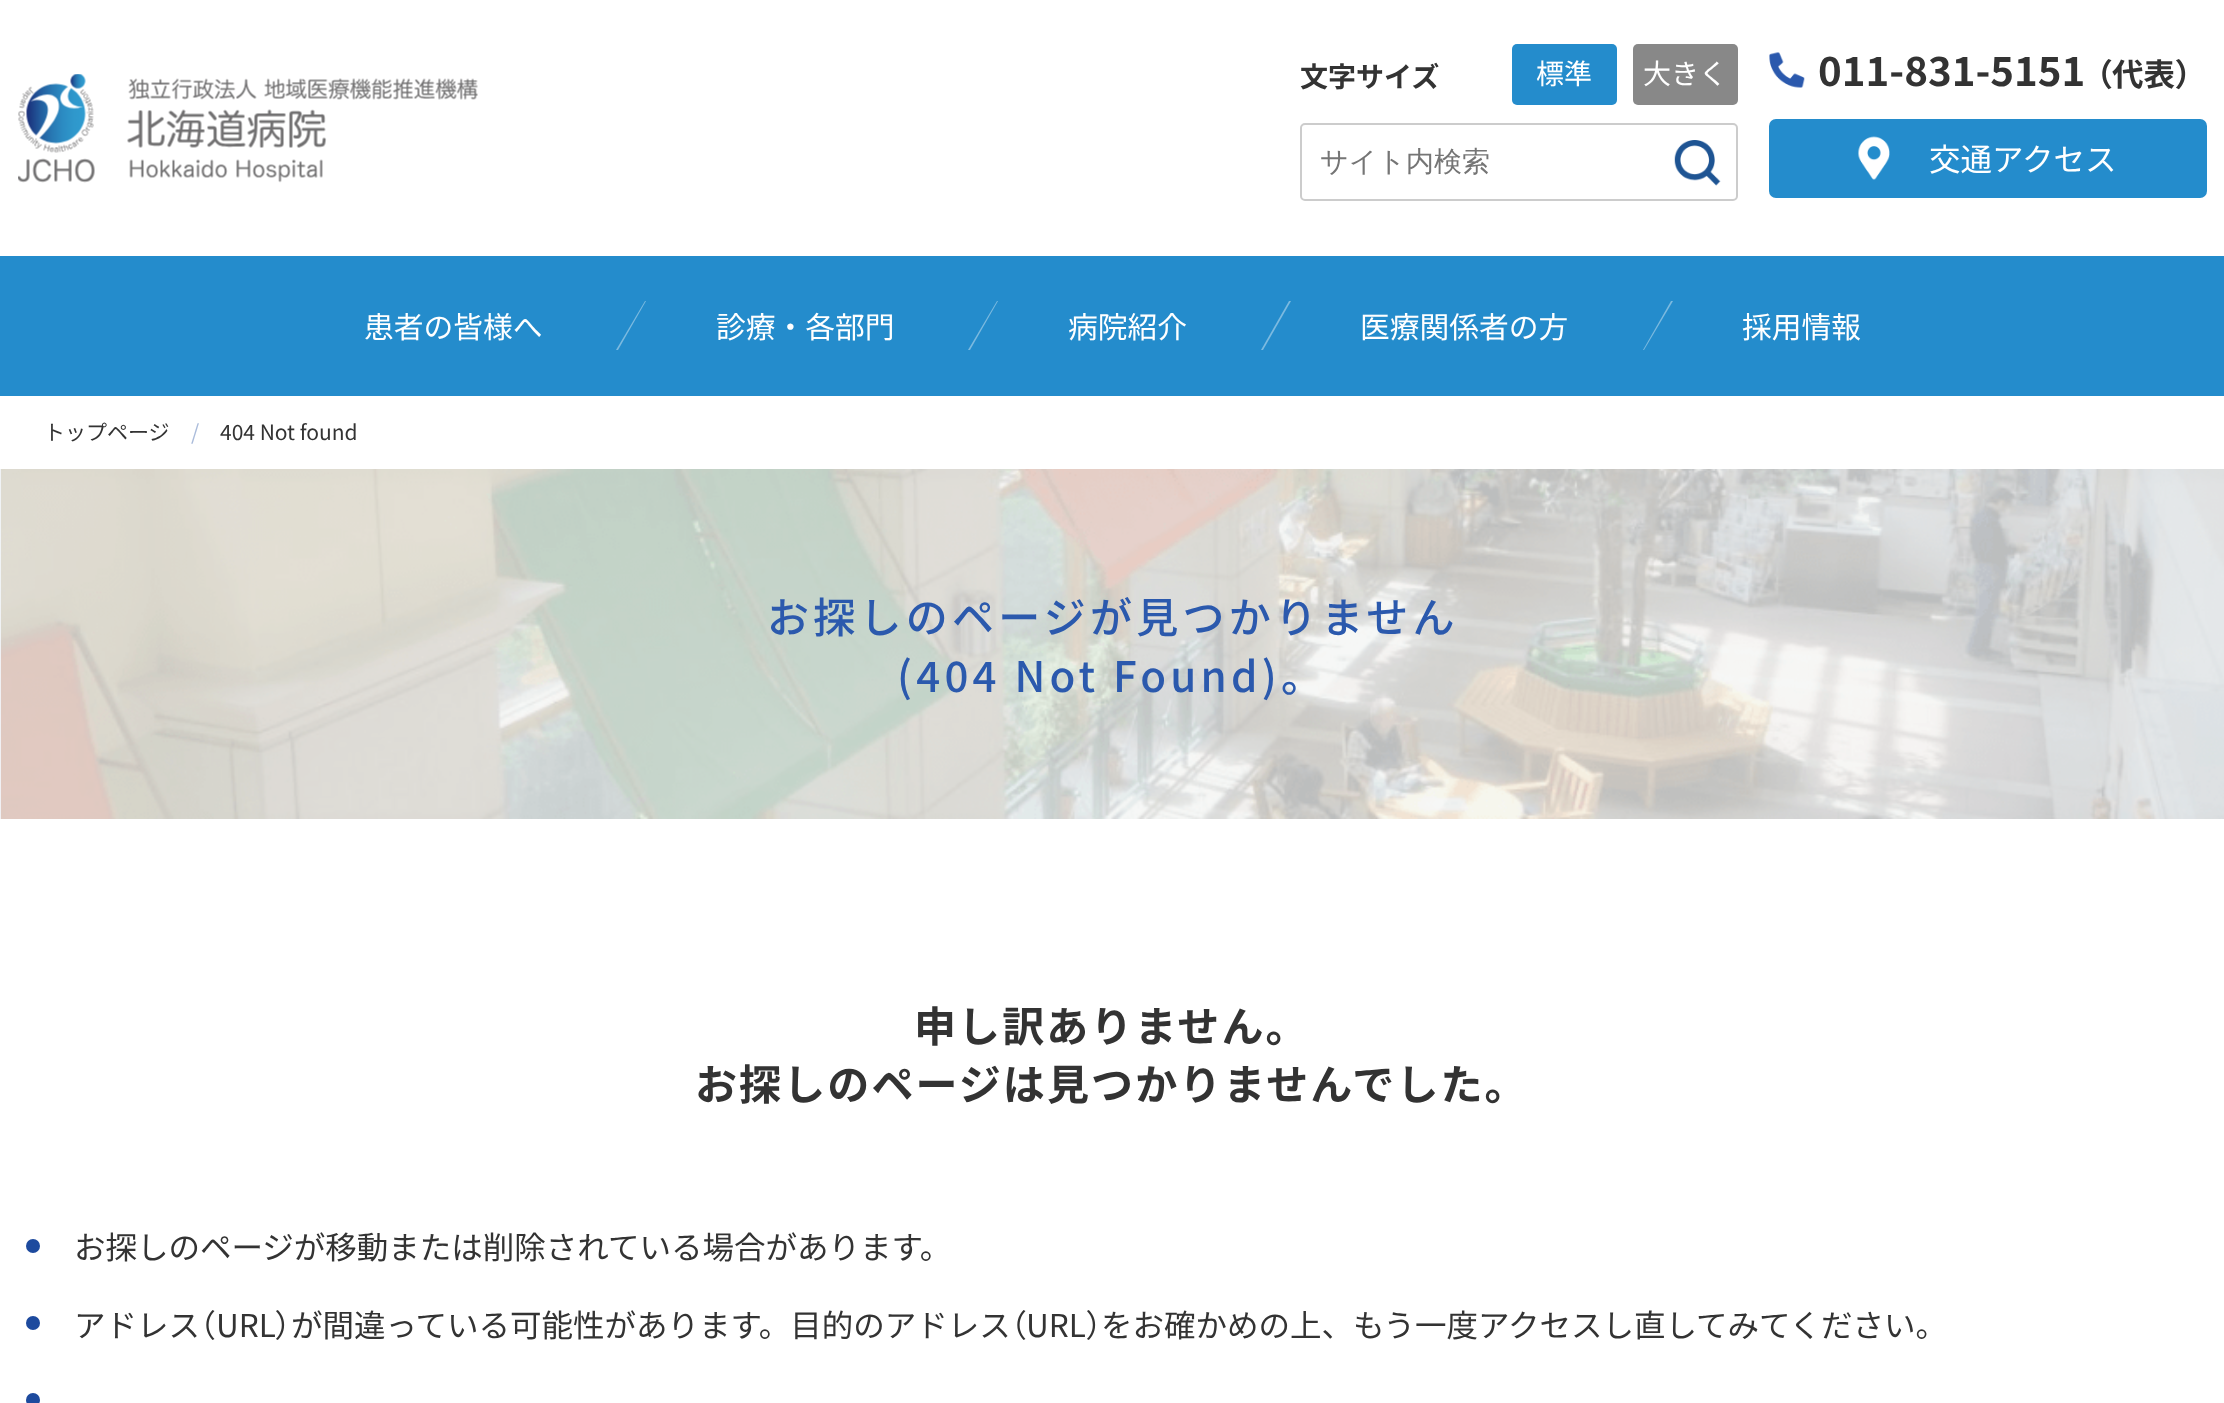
<svg xmlns="http://www.w3.org/2000/svg" width="2224" height="1403">
<style>
.a{font:bold 28px Noto Sans JP;fill:#333}
.b{font:28px Noto Sans JP;fill:#fff}
.c{font:500 28px WenQuanYi Zen Hei;fill:#757575}
.d{font:bold 40.25px Noto Sans JP;fill:#333}
.e{font:bold 31.5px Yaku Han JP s;fill:#333}
.f{font:bold 31.5px Noto Sans JP;fill:#333}
.g{font:31.5px Noto Sans JP;fill:#fff}
.h{font:29.75px Noto Sans JP;fill:#fff}
.i{font:21px Noto Sans JP;fill:#333}
.j{font:21px Noto Sans JP;fill:#abbcdb}
.k{font:500 42px Noto Sans JP;letter-spacing:4.25px;fill:#2b59ad}
.l{font:bold 42px Noto Sans JP;letter-spacing:2.1px;fill:#333}
.m{font:31.5px Noto Sans JP;fill:#333}
.n{font:31.5px Yaku Han JP s;fill:#333}
</style>
<rect width="100%" height="100%" fill="#fff"/>
<image href="1.png" x="18" y="74" width="460" height="109"/>
<rect fill="#248ccc" x="1512" y="44" width="105" height="61" rx="5"/>
<rect fill="#888" x="1633" y="44" width="105" height="61" rx="5"/>
<rect fill="none" stroke="#ccc" stroke-width="2" x="1301" y="124" width="436" height="76" rx="4"/>
<image href="2.png" x="1674" y="140" width="47" height="46"/>
<image href="3.png" x="1769" y="52" width="36" height="36"/>
<rect fill="#248ccc" x="1769" y="119" width="438" height="79" rx="7"/>
<image href="4.png" x="1858" y="136" width="32" height="44"/>
<path fill="#248ccc" d="M0 256h2224v140H0z"/>
<path fill="#7cbae0" d="M645 301h1l-28 49h-2z"/>
<path fill="#7cbae0" d="M997 301h1l-28 49h-2z"/>
<path fill="#7cbae0" d="M1289 301h2l-28 49h-2z"/>
<path fill="#7cbae0" d="M1671 301h2l-29 49h-1z"/>
<path fill="#f3f6fa" d="M0 469h2224v350H0z"/>
<image href="5.png" x="0" y="469" width="2224" height="350"/>
<circle fill="#1d4a9e" cx="33" cy="1246" r="7"/>
<circle fill="#1d4a9e" cx="33" cy="1323" r="7"/>
<circle fill="#1d4a9e" cx="33" cy="1400" r="7"/>
<text class="a" x="1300" y="87">文字サイズ</text>
<text class="b" x="1536" y="84">標準</text>
<text class="b" x="1643" y="84">大きく</text>
<text class="c" x="1320" y="171">サイト内検索</text>
<text class="d" x="1818" y="86">011-831-5151</text>
<text class="e" x="2096" y="86">（</text>
<text class="f" x="2112" y="86">代表</text>
<text class="e" x="2175" y="86">）</text>
<text class="g" x="1929" y="171">交通アクセス</text>
<text class="h" x="364" y="338">患者の皆様へ</text>
<text class="h" x="716" y="338">診療・各部門</text>
<text class="h" x="1068" y="338">病院紹介</text>
<text class="h" x="1360" y="338">医療関係者の方</text>
<text class="h" x="1742" y="338">採用情報</text>
<text class="i" x="44" y="440">トップページ</text>
<text class="j" x="191" y="440">/</text>
<text class="i" x="220" y="440">404 Not found</text>
<text class="k" x="767" y="633">お探しのページが見つかりません</text>
<text class="k" x="897" y="692">(404 Not Found)。</text>
<text class="l" x="914" y="1042">申し訳ありません。</text>
<text class="l" x="695" y="1100">お探しのページは見つかりませんでした。</text>
<text class="m" x="74" y="1259">お探しのページが移動または削除されている場合があります。</text>
<text class="m" x="74" y="1337">アドレス</text>
<text class="n" x="200" y="1337">（</text>
<text class="m" x="216" y="1337">URL</text>
<text class="n" x="275" y="1337">）</text>
<text class="m" x="291" y="1337">が間違っている可能性があります。目的のアドレス</text>
<text class="n" x="1011" y="1337">（</text>
<text class="m" x="1026" y="1337">URL</text>
<text class="n" x="1086" y="1337">）</text>
<text class="m" x="1101" y="1337">をお確かめの上、もう一度アクセスし直してみてください。</text>
</svg>
